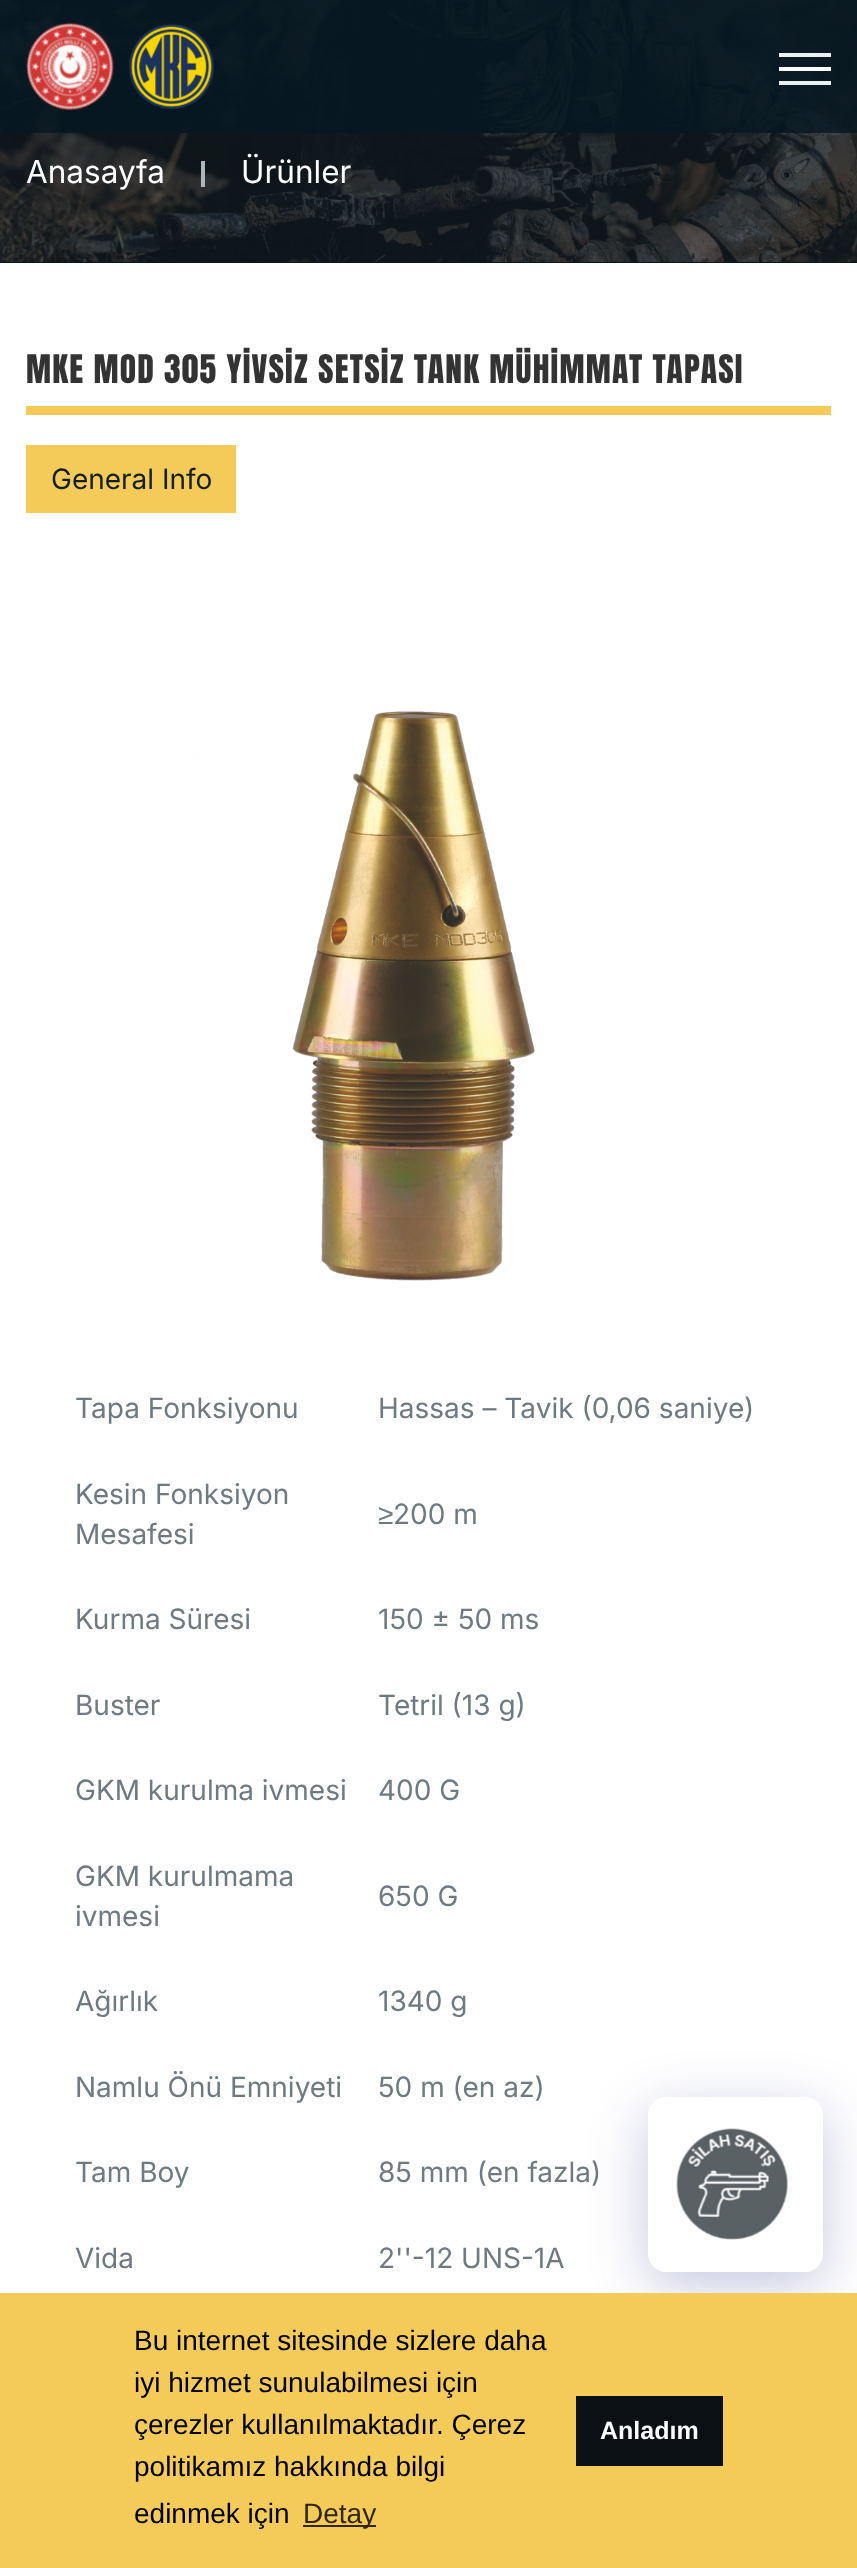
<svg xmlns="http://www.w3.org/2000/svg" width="857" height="2568">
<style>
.a{font:31.5px Inter;fill:#fff}
.b{font:33.6px Anton;letter-spacing:1.2px;fill:#333}
.c{font:28px Inter;fill:#131e25}
.d{font:28px Inter;fill:#6d7a82}
.e{font:28px Liberation Sans;fill:#6d7a82}
.f{font:28px Liberation Sans;fill:#000}
.g{font:28px Liberation Sans;fill:#312812}
.h{font:bold 25px Liberation Sans;fill:#fff}
</style>
<defs>
<clipPath id="clip1"><path d="M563 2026h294v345h-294zm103 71h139c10 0 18 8 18 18v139c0 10-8 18-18 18h-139c-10 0-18-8-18-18v-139c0-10 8-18 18-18z" clip-rule="evenodd"/></clipPath>
</defs>
<rect width="100%" height="100%" fill="#fff"/>
<image href="3.png" x="0" y="0" width="857" height="262"/>
<path fill="#061823d6" d="M0 0h857v133H0z"/>
<image href="1.png" x="26" y="22" width="89" height="89"/>
<image href="2.png" x="129" y="23" width="86" height="87"/>
<path fill="#fefefe" d="M779 67h52v4H779z"/>
<path fill="#eeeff0" d="M779 53h52v4H779z"/>
<path fill="#eeeff0" d="M779 81h52v4H779z"/>
<path fill="#061823" d="M0 262h857v1H0z"/>
<path fill="#b0b6b9" d="M201 161h4v26H201z"/>
<path fill="#f4ca59" d="M26 406h805v9H26z"/>
<path fill="#f4ca59" d="M26 445h210v68H26z"/>
<image href="4.png" x="194" y="623" width="510" height="658"/>
<g clip-path="url(#clip1)">
<rect fill="#1f268742" filter="blur(28px)" x="648" y="2111" width="175" height="175" rx="18"/>
</g>
<rect fill="#ffffff26" x="648" y="2097" width="175" height="175" rx="18"/>
<rect fill="none" stroke="#ffffff2e" stroke-width="2" x="649" y="2098" width="173" height="173" rx="17"/>
<image href="5.png" x="676" y="2128" width="113" height="112"/>
<path fill="#f4ca59" d="M0 2293h857v275H0z"/>
<path fill="#312812" d="M303 2525h73v2H303z"/>
<path fill="#0a1014" d="M576 2396h147v70H576z"/>
<text class="a" x="26" y="183">Anasayfa</text>
<text class="a" x="241" y="183">Ürünler</text>
<text class="b" x="26" y="383">MKE MOD 305 YİVSİZ SETSİZ TANK MÜHİMMAT TAPASI</text>
<text class="c" x="51" y="489">General Info</text>
<text class="d" x="75" y="1418">Tapa Fonksiyonu</text>
<text class="d" x="378" y="1418">Hassas – Tavik (0,06 saniye)</text>
<text class="d" x="75" y="1504">Kesin Fonksiyon</text>
<text class="d" x="75" y="1544">Mesafesi</text>
<text class="e" x="378" y="1524">≥</text>
<text class="d" x="393" y="1524">200 m</text>
<text class="d" x="75" y="1629">Kurma Süresi</text>
<text class="d" x="378" y="1629">150 ± 50 ms</text>
<text class="d" x="75" y="1715">Buster</text>
<text class="d" x="378" y="1715">Tetril (13 g)</text>
<text class="d" x="75" y="1800">GKM kurulma ivmesi</text>
<text class="d" x="378" y="1800">400 G</text>
<text class="d" x="75" y="1886">GKM kurulmama</text>
<text class="d" x="75" y="1926">ivmesi</text>
<text class="d" x="378" y="1906">650 G</text>
<text class="d" x="75" y="2011">Ağırlık</text>
<text class="d" x="378" y="2011">1340 g</text>
<text class="d" x="75" y="2097">Namlu Önü Emniyeti</text>
<text class="d" x="378" y="2097">50 m (en az)</text>
<text class="d" x="75" y="2182">Tam Boy</text>
<text class="d" x="378" y="2182">85 mm (en fazla)</text>
<text class="d" x="75" y="2268">Vida</text>
<text class="d" x="378" y="2268">2''-12 UNS-1A</text>
<text class="f" x="134" y="2350">Bu internet sitesinde sizlere daha</text>
<text class="f" x="134" y="2392">iyi hizmet sunulabilmesi için</text>
<text class="f" x="134" y="2434">çerezler kullanılmaktadır. Çerez</text>
<text class="f" x="134" y="2476">politikamız hakkında bilgi</text>
<text class="f" x="134" y="2523">edinmek için</text>
<text class="g" x="303" y="2523">Detay</text>
<text class="h" x="600" y="2439">Anladım</text>
</svg>
